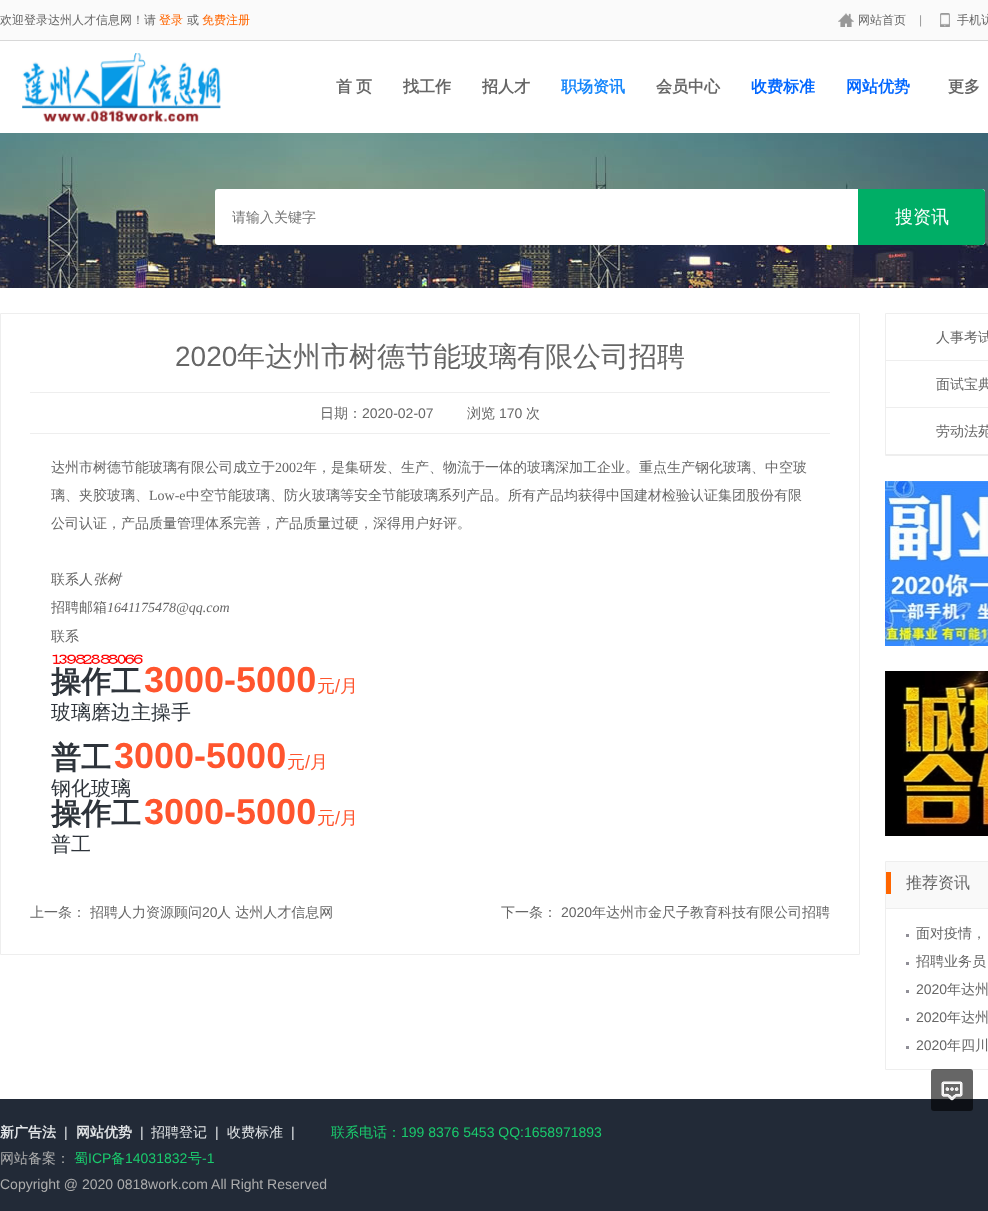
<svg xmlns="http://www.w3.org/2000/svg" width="988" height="1211">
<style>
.a{font:500 12px WenQuanYi Zen Hei;fill:#666}
.b{font:500 12px WenQuanYi Zen Hei;fill:#f60}
.c{font:12px Liberation Sans;fill:#999}
.d{font:bold 16px WenQuanYi Zen Hei;fill:#666}
.e{font:bold 16px WenQuanYi Zen Hei;fill:#1787fb}
.f{font:bold 16px WenQuanYi Zen Hei;fill:#06f}
.g{font:500 14px WenQuanYi Zen Hei;fill:#757575}
.h{font:500 18px WenQuanYi Zen Hei;fill:#fff}
.i{font:28px Liberation Sans;fill:#666}
.j{font:500 28px WenQuanYi Zen Hei;fill:#666}
.k{font:500 14px WenQuanYi Zen Hei;fill:#666}
.l{font:14px Liberation Sans;fill:#666}
.m{font:14px Liberation Serif;fill:#666}
.n{font:italic 500 14px WenQuanYi Zen Hei;fill:#666}
.o{font:italic 14px Liberation Serif;fill:#666}
.p{font:bold 30px WenQuanYi Zen Hei;fill:#2e343b}
.q{font:bold 36px Liberation Sans;fill:#ff552e}
.r{font:500 18px WenQuanYi Zen Hei;fill:#ff552e}
.s{font:18px Liberation Sans;fill:#ff552e}
.t{font:500 20px WenQuanYi Zen Hei;fill:#2e343b}
.u{font:500 16px WenQuanYi Zen Hei;fill:#666}
.v{font:bold 14px WenQuanYi Zen Hei;fill:#e1e4e6}
.w{font:14px Liberation Sans;fill:#e1e4e6}
.x{font:500 14px WenQuanYi Zen Hei;fill:#e1e4e6}
.y{font:500 14px WenQuanYi Zen Hei;fill:#1acb6d}
.z{font:14px Liberation Sans;fill:#1acb6d}
.a1{font:500 14px WenQuanYi Zen Hei;fill:#adadad}
.b1{font:14px Liberation Sans;fill:#adadad}
</style>
<rect width="100%" height="100%" fill="#fff"/>
<path fill="#fafafa" d="M0 0h988v40H0z"/>
<image href="1.png" x="838" y="13" width="16" height="14"/>
<image href="2.png" x="940" y="13" width="10" height="14"/>
<path fill="#d8d8d8" d="M0 40h988v1H0z"/>
<image href="3.png" x="22" y="53" width="199" height="69"/>
<image href="4.png" x="0" y="133" width="988" height="155"/>
<rect fill="#fff" x="215" y="189" width="770" height="56" rx="3"/>
<path fill="#00ae66" d="M858 189h124c1.5 0 3 1.5 3 3v50c0 1.5-1.5 3-3 3h-124z"/>
<path fill="none" stroke="#eee" d="M0.5 313.5h859v641H0.5z"/>
<path fill="#eee" d="M30 392h800v1H30z"/>
<path fill="#eee" d="M30 433h800v1H30z"/>
<image href="5.png" x="52" y="654" width="91" height="10"/>
<path fill="none" stroke="#eee" d="M885.5 313.5h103v142H885.5z"/>
<path fill="#eee" d="M886 360h102v1H886z"/>
<path fill="#eee" d="M886 407h102v1H886z"/>
<path fill="#eee" d="M886 454h102v1H886z"/>
<image href="6.png" x="885" y="481" width="103" height="165"/>
<image href="7.png" x="885" y="671" width="103" height="165"/>
<path fill="none" stroke="#eee" d="M885.5 861.5h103v208H885.5z"/>
<path fill="#f9f9f9" d="M886 862h102v46H886z"/>
<path fill="#eee" d="M886 908h102v1H886z"/>
<path fill="#f60" d="M886 872h5v22H886z"/>
<path fill="#908f97" d="M906 934h3v3H906z"/>
<path fill="#908f97" d="M906 962h3v3H906z"/>
<path fill="#908f97" d="M906 990h3v3H906z"/>
<path fill="#908f97" d="M906 1018h3v3H906z"/>
<path fill="#908f97" d="M906 1046h3v3H906z"/>
<path fill="#222a37" d="M0 1099h988v112H0z"/>
<image href="8.png" x="931" y="1069" width="42" height="42"/>
<text class="a" x="0" y="24">欢迎登录达州人才信息网！请</text>
<text class="b" x="159" y="24">登录</text>
<text class="a" x="187" y="24">或</text>
<text class="b" x="202" y="24">免费注册</text>
<text class="a" x="858" y="24">网站首页</text>
<text class="c" x="919" y="24">|</text>
<text class="a" x="957" y="24">手机访</text>
<text class="d" x="336" y="92">首</text>
<text class="d" x="356" y="92">页</text>
<text class="d" x="403" y="92">找工作</text>
<text class="d" x="482" y="92">招人才</text>
<text class="e" x="561" y="92">职场资讯</text>
<text class="d" x="656" y="92">会员中心</text>
<text class="f" x="751" y="92">收费标准</text>
<text class="f" x="846" y="92">网站优势</text>
<text class="d" x="948" y="92">更多</text>
<text class="g" x="232" y="222">请输入关键字</text>
<text class="h" x="895" y="223">搜资讯</text>
<text class="i" x="175" y="366">2020</text>
<text class="j" x="237" y="366">年达州市树德节能玻璃有限公司招聘</text>
<text class="k" x="320" y="418">日期：</text>
<text class="l" x="362" y="418">2020-02-07</text>
<text class="k" x="467" y="418">浏览</text>
<text class="l" x="499" y="418">170</text>
<text class="k" x="526" y="418">次</text>
<text class="k" x="51" y="472">达州市树德节能玻璃有限公司成立于</text>
<text class="m" x="275" y="472">2002</text>
<text class="k" x="303" y="472">年，是集研发、生产、物流于一体的玻璃深加工企业。重点生产钢化玻璃、中空玻</text>
<text class="k" x="51" y="500">璃、夹胶玻璃、</text>
<text class="m" x="149" y="500">Low-e</text>
<text class="k" x="186" y="500">中空节能玻璃、防火玻璃等安全节能玻璃系列产品。所有产品均获得中国建材检验认证集团股份有限</text>
<text class="k" x="51" y="528">公司认证，产品质量管理体系完善，产品质量过硬，深得用户好评。</text>
<text class="k" x="51" y="584">联系人</text>
<text class="n" x="93" y="584">张树</text>
<text class="k" x="51" y="612">招聘邮箱</text>
<text class="o" x="107" y="612">1641175478@qq.com</text>
<text class="k" x="51" y="641">联系</text>
<text class="p" x="51" y="692">操作工</text>
<text class="q" x="144" y="692">3000-5000</text>
<text class="r" x="317" y="692">元</text>
<text class="s" x="335" y="692">/</text>
<text class="r" x="340" y="692">月</text>
<text class="t" x="51" y="719">玻璃磨边主操手</text>
<text class="p" x="51" y="768">普工</text>
<text class="q" x="114" y="768">3000-5000</text>
<text class="r" x="287" y="768">元</text>
<text class="s" x="305" y="768">/</text>
<text class="r" x="310" y="768">月</text>
<text class="t" x="51" y="795">钢化玻璃</text>
<text class="p" x="51" y="824">操作工</text>
<text class="q" x="144" y="824">3000-5000</text>
<text class="r" x="317" y="824">元</text>
<text class="s" x="335" y="824">/</text>
<text class="r" x="340" y="824">月</text>
<text class="t" x="51" y="851">普工</text>
<text class="k" x="30" y="917">上一条：</text>
<text class="k" x="90" y="917">招聘人力资源顾问</text>
<text class="l" x="202" y="917">20</text>
<text class="k" x="217" y="917">人 达州人才信息网</text>
<text class="k" x="501" y="917">下一条：</text>
<text class="l" x="561" y="917">2020</text>
<text class="k" x="592" y="917">年达州市金尺子教育科技有限公司招聘</text>
<text class="k" x="936" y="342">人事考试</text>
<text class="k" x="936" y="389">面试宝典</text>
<text class="k" x="936" y="436">劳动法苑</text>
<text class="u" x="906" y="888">推荐资讯</text>
<text class="k" x="916" y="938">面对疫情，</text>
<text class="k" x="916" y="966">招聘业务员</text>
<text class="l" x="916" y="994">2020</text>
<text class="k" x="947" y="994">年达州</text>
<text class="l" x="916" y="1022">2020</text>
<text class="k" x="947" y="1022">年达州</text>
<text class="l" x="916" y="1050">2020</text>
<text class="k" x="947" y="1050">年四川</text>
<text class="v" x="0" y="1137">新广告法</text>
<text class="w" x="64" y="1137">|</text>
<text class="v" x="76" y="1137">网站优势</text>
<text class="w" x="140" y="1137">|</text>
<text class="x" x="151" y="1137">招聘登记</text>
<text class="w" x="215" y="1137">|</text>
<text class="x" x="227" y="1137">收费标准</text>
<text class="w" x="291" y="1137">|</text>
<text class="y" x="331" y="1137">联系电话：</text>
<text class="z" x="401" y="1137">199 8376 5453 QQ:1658971893</text>
<text class="a1" x="0" y="1163">网站备案：</text>
<text class="y" x="74" y="1163">蜀</text>
<text class="z" x="88" y="1163">ICP</text>
<text class="y" x="111" y="1163">备</text>
<text class="z" x="125" y="1163">14031832</text>
<text class="y" x="188" y="1163">号</text>
<text class="z" x="202" y="1163">-1</text>
<text class="b1" x="0" y="1189">Copyright @ 2020 0818work.com All Right Reserved</text>
</svg>
